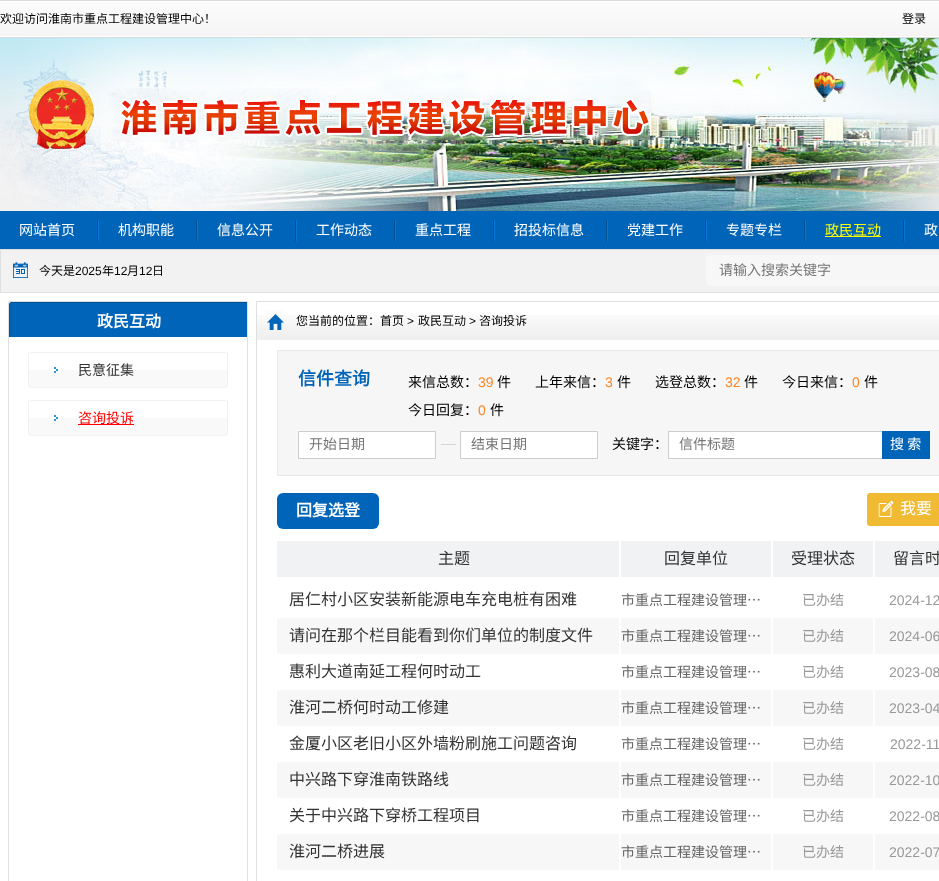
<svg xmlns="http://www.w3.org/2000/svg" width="939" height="881">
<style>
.a{font:12px Noto Sans CJK SC;fill:#000}
.b{font:14px Noto Sans CJK SC;fill:#fff}
.c{font:14px Noto Sans CJK SC;fill:#ff0}
.d{font:12px Liberation Sans;fill:#000}
.e{font:14px Noto Sans CJK SC;fill:#757575}
.f{font:bold 16px Noto Sans CJK SC;fill:#fff}
.g{font:14px Noto Sans CJK SC;fill:#333}
.h{font:14px Noto Sans CJK SC;fill:#f00}
.i{font:bold 18px Noto Sans CJK SC;fill:#0064b9}
.j{font:14px Noto Sans CJK SC;fill:#000}
.k{font:14px Liberation Sans;fill:#fd8524}
.l{font:16px Noto Sans CJK SC;fill:#fff}
.m{font:16px Noto Sans CJK SC;fill:#333}
.n{font:14px Noto Sans CJK SC;fill:#666}
.o{font:14px Noto Sans CJK SC;fill:#999}
.p{font:14px Liberation Sans;fill:#999}
</style>
<rect width="100%" height="100%" fill="#f2f2f2"/>
<image href="1.png" x="0" y="0" width="939" height="38"/>
<image href="2.png" x="0" y="38" width="939" height="173"/>
<path fill="#0064b9" d="M0 211h939v38H0z"/>
<image href="3.png" x="97" y="220" width="2" height="21"/>
<image href="3.png" x="196" y="220" width="2" height="21"/>
<image href="3.png" x="295" y="220" width="2" height="21"/>
<image href="3.png" x="394" y="220" width="2" height="21"/>
<image href="3.png" x="493" y="220" width="2" height="21"/>
<image href="3.png" x="606" y="220" width="2" height="21"/>
<image href="3.png" x="705" y="220" width="2" height="21"/>
<image href="3.png" x="804" y="220" width="2" height="21"/>
<image href="3.png" x="903" y="220" width="2" height="21"/>
<path fill="#ff0" d="M825 236h56v1H825z"/>
<path fill="none" stroke="#dfdfdf" d="M0.5 249.5h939v43H0.5z"/>
<image href="4.png" x="13" y="262" width="15" height="16"/>
<path fill="#f7f7f7" d="M709 255h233v31h-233c-1.5 0-3-1.5-3-3v-25c0-1.5 1.5-3 3-3z"/>
<path fill="#fff" d="M0 293h939v588H0z"/>
<path fill="none" stroke="#dfdfdf" d="M8.5 301.5h239v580H8.5z"/>
<image href="5.png" x="9" y="302" width="238" height="35"/>
<image href="6.png" x="28" y="352" width="200" height="36"/>
<image href="6.png" x="28" y="400" width="200" height="36"/>
<path fill="#f00" d="M78 424h56v1H78z"/>
<path fill="none" stroke="#dfdfdf" d="M256.5 301.5h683v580H256.5z"/>
<image href="7.png" x="257" y="315" width="682" height="25"/>
<image href="8.png" x="265" y="310" width="19" height="20"/>
<path fill="#f6f6f6" stroke="#e8e8e8" d="M277.5 350.5h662v125H277.5z"/>
<path fill="#fff" stroke="#cecece" d="M298.5 431.5h137v27H298.5z"/>
<path fill="#d5d5d5" d="M441 444h15v1H441z"/>
<path fill="#fff" stroke="#cecece" d="M460.5 431.5h137v27H460.5z"/>
<path fill="#fff" d="M669 432h213v26H669z"/>
<path fill="#cecece" d="M668 431h214v1H668z"/>
<path fill="#cecece" d="M668 458h214v1H668z"/>
<path fill="#cecece" d="M668 431h1v28H668z"/>
<path fill="#0064b9" d="M882 431h48v28H882z"/>
<rect fill="#0064b9" x="277" y="493" width="102" height="36" rx="6"/>
<image href="9.png" x="867" y="493" width="72" height="33"/>
<path fill="#f1f2f3" d="M277 541h662v36H277z"/>
<path fill="#fff" d="M619 541h2v36H619z"/>
<path fill="#fff" d="M771 541h2v36H771z"/>
<path fill="#fff" d="M873 541h2v36H873z"/>
<path fill="#f7f7f7" d="M277 618h662v36H277z"/>
<path fill="#fff" d="M619 618h2v36H619z"/>
<path fill="#fff" d="M771 618h2v36H771z"/>
<path fill="#fff" d="M873 618h2v36H873z"/>
<path fill="#f7f7f7" d="M277 690h662v36H277z"/>
<path fill="#fff" d="M619 690h2v36H619z"/>
<path fill="#fff" d="M771 690h2v36H771z"/>
<path fill="#fff" d="M873 690h2v36H873z"/>
<path fill="#f7f7f7" d="M277 762h662v36H277z"/>
<path fill="#fff" d="M619 762h2v36H619z"/>
<path fill="#fff" d="M771 762h2v36H771z"/>
<path fill="#fff" d="M873 762h2v36H873z"/>
<path fill="#f7f7f7" d="M277 834h662v36H277z"/>
<path fill="#fff" d="M619 834h2v36H619z"/>
<path fill="#fff" d="M771 834h2v36H771z"/>
<path fill="#fff" d="M873 834h2v36H873z"/>
<text class="a" x="0" y="23">欢迎访问淮南市重点工程建设管理中心！</text>
<text class="a" x="902" y="23">登录</text>
<text class="b" x="19" y="235">网站首页</text>
<text class="b" x="118" y="235">机构职能</text>
<text class="b" x="217" y="235">信息公开</text>
<text class="b" x="316" y="235">工作动态</text>
<text class="b" x="415" y="235">重点工程</text>
<text class="b" x="514" y="235">招投标信息</text>
<text class="b" x="627" y="235">党建工作</text>
<text class="b" x="726" y="235">专题专栏</text>
<text class="c" x="825" y="235">政民互动</text>
<text class="b" x="924" y="235">政</text>
<text class="a" x="39" y="275">今天是</text>
<text class="d" x="75" y="275">2025</text>
<text class="a" x="102" y="275">年</text>
<text class="d" x="114" y="275">12</text>
<text class="a" x="127" y="275">月</text>
<text class="d" x="139" y="275">12</text>
<text class="a" x="152" y="275">日</text>
<text class="e" x="719" y="275">请输入搜索关键字</text>
<text class="f" x="97" y="327">政民互动</text>
<text class="g" x="78" y="375">民意征集</text>
<text class="h" x="78" y="423">咨询投诉</text>
<text class="a" x="296" y="325">您当前的位置：首页</text>
<text class="d" x="407" y="325">&gt;</text>
<text class="a" x="418" y="325">政民互动</text>
<text class="d" x="469" y="325">&gt;</text>
<text class="a" x="479" y="325">咨询投诉</text>
<text class="i" x="298" y="385">信件查询</text>
<text class="j" x="408" y="387">来信总数：</text>
<text class="k" x="478" y="387">39</text>
<text class="j" x="497" y="387">件</text>
<text class="j" x="535" y="387">上年来信：</text>
<text class="k" x="605" y="387">3</text>
<text class="j" x="617" y="387">件</text>
<text class="j" x="655" y="387">选登总数：</text>
<text class="k" x="725" y="387">32</text>
<text class="j" x="744" y="387">件</text>
<text class="j" x="782" y="387">今日来信：</text>
<text class="k" x="852" y="387">0</text>
<text class="j" x="864" y="387">件</text>
<text class="j" x="408" y="415">今日回复：</text>
<text class="k" x="478" y="415">0</text>
<text class="j" x="490" y="415">件</text>
<text class="e" x="309" y="449">开始日期</text>
<text class="e" x="471" y="449">结束日期</text>
<text class="j" x="612" y="449">关键字：</text>
<text class="e" x="679" y="449">信件标题</text>
<text class="b" x="890" y="449">搜 索</text>
<text class="f" x="296" y="516">回复选登</text>
<text class="l" x="900" y="514">我要</text>
<text class="m" x="438" y="564">主题</text>
<text class="m" x="664" y="564">回复单位</text>
<text class="m" x="791" y="564">受理状态</text>
<text class="m" x="893" y="564">留言时</text>
<text class="m" x="289" y="605">居仁村小区安装新能源电车充电桩有困难</text>
<text class="n" x="621" y="605">市重点工程建设管理…</text>
<text class="o" x="802" y="605">已办结</text>
<text class="p" x="889" y="605">2024-12</text>
<text class="m" x="289" y="641">请问在那个栏目能看到你们单位的制度文件</text>
<text class="n" x="621" y="641">市重点工程建设管理…</text>
<text class="o" x="802" y="641">已办结</text>
<text class="p" x="889" y="641">2024-06</text>
<text class="m" x="289" y="677">惠利大道南延工程何时动工</text>
<text class="n" x="621" y="677">市重点工程建设管理…</text>
<text class="o" x="802" y="677">已办结</text>
<text class="p" x="889" y="677">2023-08</text>
<text class="m" x="289" y="713">淮河二桥何时动工修建</text>
<text class="n" x="621" y="713">市重点工程建设管理…</text>
<text class="o" x="802" y="713">已办结</text>
<text class="p" x="889" y="713">2023-04</text>
<text class="m" x="289" y="749">金厦小区老旧小区外墙粉刷施工问题咨询</text>
<text class="n" x="621" y="749">市重点工程建设管理…</text>
<text class="o" x="802" y="749">已办结</text>
<text class="p" x="890" y="749">2022-11</text>
<text class="m" x="289" y="785">中兴路下穿淮南铁路线</text>
<text class="n" x="621" y="785">市重点工程建设管理…</text>
<text class="o" x="802" y="785">已办结</text>
<text class="p" x="889" y="785">2022-10</text>
<text class="m" x="289" y="821">关于中兴路下穿桥工程项目</text>
<text class="n" x="621" y="821">市重点工程建设管理…</text>
<text class="o" x="802" y="821">已办结</text>
<text class="p" x="889" y="821">2022-08</text>
<text class="m" x="289" y="857">淮河二桥进展</text>
<text class="n" x="621" y="857">市重点工程建设管理…</text>
<text class="o" x="802" y="857">已办结</text>
<text class="p" x="889" y="857">2022-07</text>
</svg>
